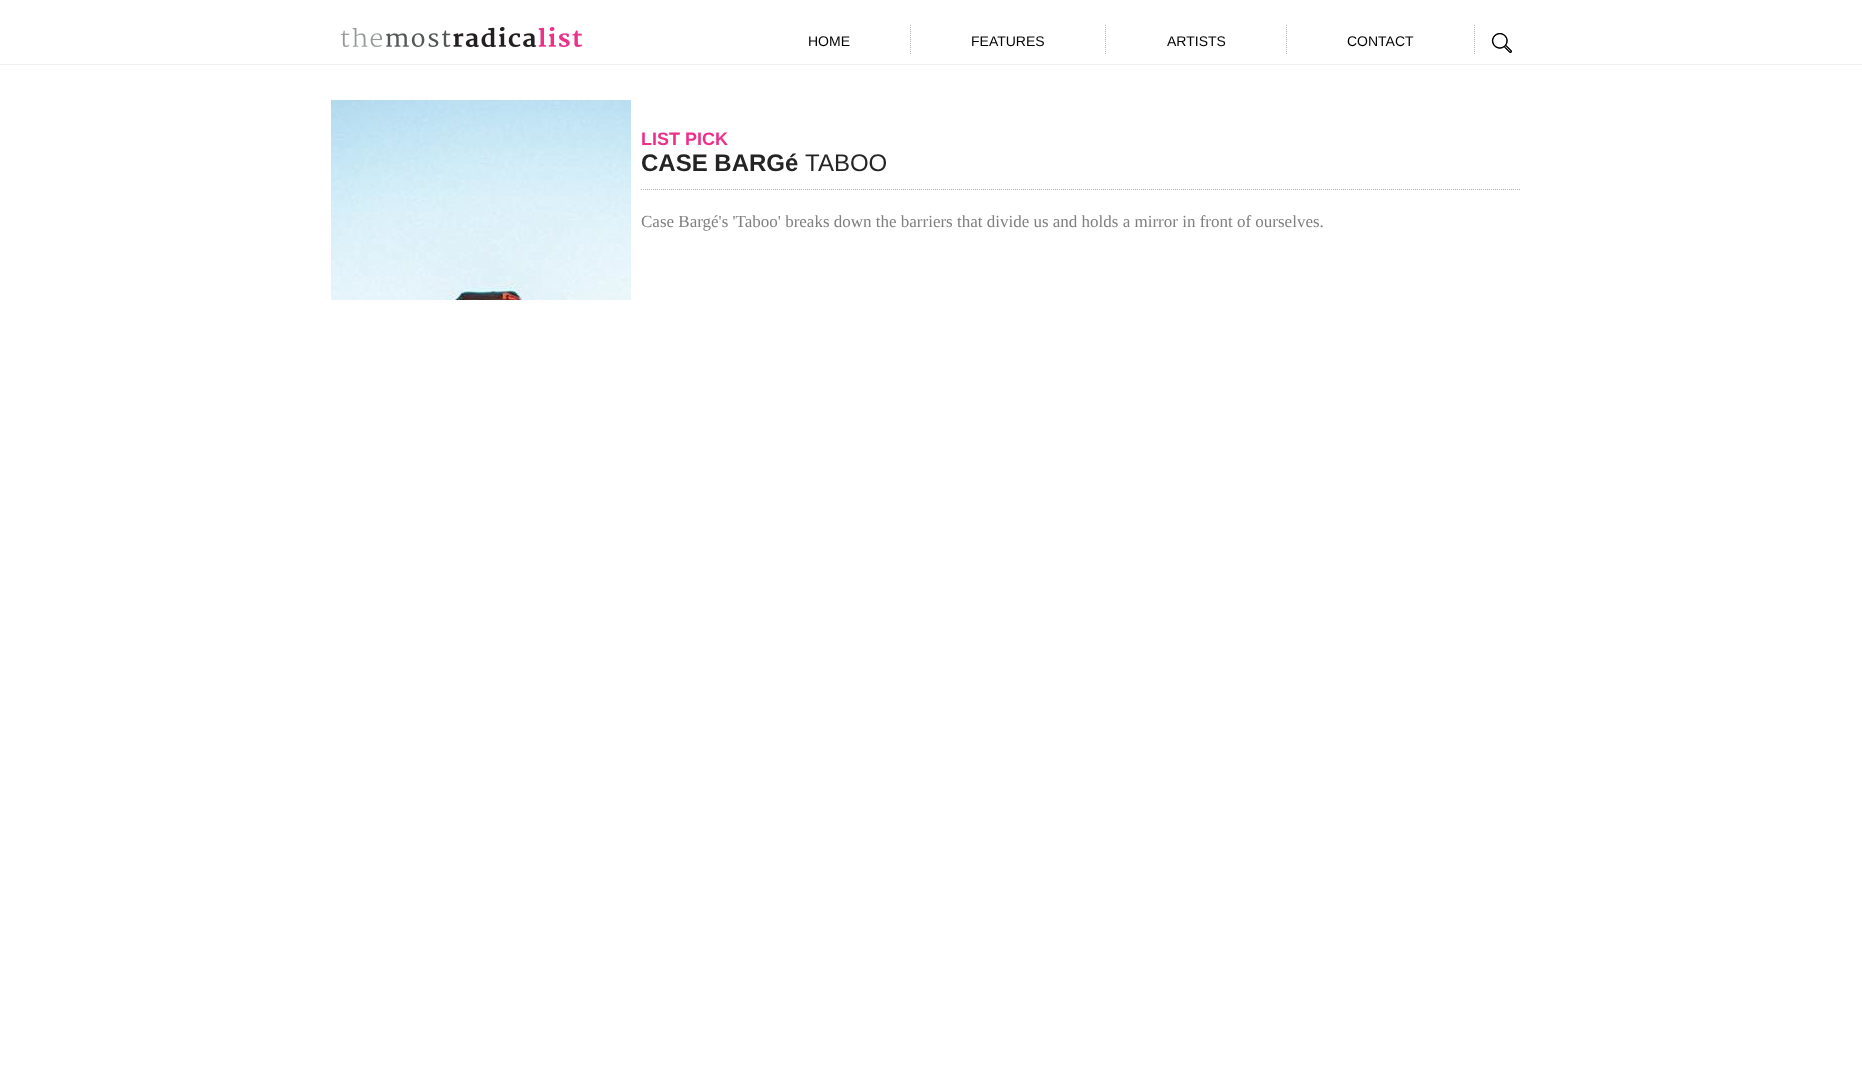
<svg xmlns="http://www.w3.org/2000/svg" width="1862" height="1081">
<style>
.a{font:14px Liberation Sans;fill:#000}
.b{font:bold 18px Liberation Sans;fill:#ed308a}
.c{font:bold 24px Liberation Sans;fill:#242424}
.d{font:24px Liberation Sans;fill:#242424}
.e{font:17px Liberation Serif;fill:#7f7f7f}
</style>
<rect width="100%" height="100%" fill="#fff"/>
<path fill="#eee" d="M0 64h1862v1H0z"/>
<image href="1.png" x="341" y="27" width="241" height="20"/>
<path fill="none" stroke="#b2b2b2" stroke-dasharray="1 1" d="M910.5 25v30"/>
<path fill="none" stroke="#b2b2b2" stroke-dasharray="1 1" d="M1105.5 25v30"/>
<path fill="none" stroke="#b2b2b2" stroke-dasharray="1 1" d="M1286.5 25v30"/>
<path fill="none" stroke="#b2b2b2" stroke-dasharray="1 1" d="M1474.5 25v30"/>
<image href="2.png" x="1491" y="33" width="22" height="20"/>
<image href="3.png" x="331" y="100" width="300" height="200"/>
<path fill="none" stroke="#b2b2b2" stroke-dasharray="1 1" d="M641 189.5h880"/>
<text class="a" x="808" y="46">HOME</text>
<text class="a" x="971" y="46">FEATURES</text>
<text class="a" x="1167" y="46">ARTISTS</text>
<text class="a" x="1347" y="46">CONTACT</text>
<text class="b" x="641" y="145">LIST PICK</text>
<text class="c" x="641" y="171">CASE BARGé</text>
<text class="d" x="805" y="171">TABOO</text>
<text class="e" x="641" y="227">Case Bargé's 'Taboo' breaks down the barriers that divide us and holds a mirror in front of ourselves.</text>
</svg>
